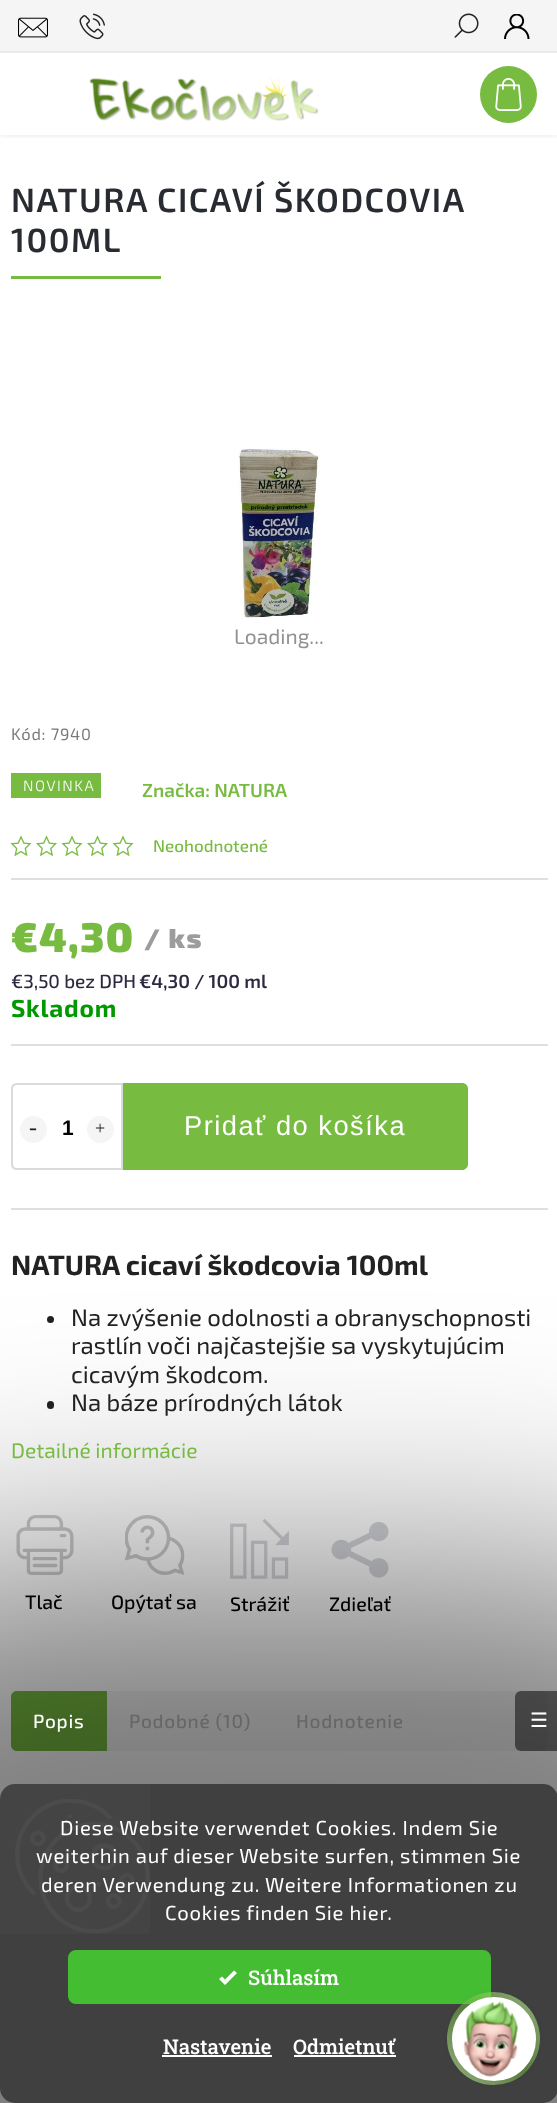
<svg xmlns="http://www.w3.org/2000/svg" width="557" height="2103">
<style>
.a{font:600 33.6px 'Exo 2';letter-spacing:1.5px;fill:#292b32}
.b{font:21px 'Exo 2';fill:#919191}
.c{font:16.5px 'Exo 2';letter-spacing:0.75px;fill:#7a7a7a}
.d{font:300 15px 'Exo 2';letter-spacing:1.5px;fill:#fff}
.e{font:600 19px 'Exo 2';fill:#77bb41}
.f{font:500 17px 'Exo 2';fill:#77bb41}
.g{font:900 41.5px 'Exo 2';letter-spacing:1.5px;fill:#77bb41}
.h{font:900 27px 'Exo 2';letter-spacing:1.5px;fill:#9c9c9c}
.i{font:500 19px 'Exo 2';fill:#2b2a40}
.j{font:600 19px 'Exo 2';fill:#2b2a40}
.k{font:bold 24.5px 'Exo 2';letter-spacing:0.75px;fill:#009901}
.l{font:24px Liberation Serif;fill:#222}
.m{font:bold 21px Liberation Sans;fill:#000}
.n{font:18px Liberation Serif;letter-spacing:1.5px;fill:#222}
.o{font:27.25px Liberation Sans;letter-spacing:1.5px;fill:#fff}
.p{font:bold 28px 'Exo 2';fill:#222}
.q{font:24px 'Exo 2';fill:#222}
.r{font:21px 'Exo 2';fill:#77bb41}
.s{font:500 19.5px 'Exo 2';fill:#000}
.t{font:500 19px 'Exo 2';letter-spacing:0.75px;fill:#fff}
.u{font:500 19px 'Exo 2';letter-spacing:0.75px;fill:#666}
.v{font:20px DejaVu Sans;fill:#fff}
.w{font:20.25px 'Exo 2';letter-spacing:0.75px;fill:#fff}
.x{font:500 20.25px Roboto Slab;fill:#fff}
</style>
<defs>
<clipPath id="clip1"><path d="M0 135h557v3H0z"/></clipPath>
<linearGradient id="g1" gradientUnits="userSpaceOnUse" x1="447" y1="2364" x2="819" y2="1992"><stop offset="0" stop-color="#77bb41" stop-opacity="0.5"/><stop offset="0.25" stop-color="#fff"/><stop offset="0.5" stop-color="#77bb41" stop-opacity="0.5"/><stop offset="0.75" stop-color="#fff"/><stop offset="1" stop-color="#77bb41" stop-opacity="0.5"/></linearGradient>
</defs>
<rect width="100%" height="100%" fill="#fff"/>
<g clip-path="url(#clip1)">
<path fill="#0000001a" filter="blur(4px)" d="M0 45h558v90H0z"/>
</g>
<path fill="#f5f5f5" d="M0 0h557v51H0z"/>
<path fill="#eaeaea" d="M0 51h557v2H0z"/>
<image href="1.png" x="18" y="17" width="30" height="21"/>
<image href="2.png" x="79" y="13" width="26" height="27"/>
<image href="3.png" x="454" y="13" width="25" height="25"/>
<image href="4.png" x="504" y="14" width="26" height="25"/>
<image href="5.png" x="89" y="76" width="230" height="45"/>
<circle fill="#77bb41" cx="508.5" cy="94.5" r="28.5"/>
<image href="6.png" x="495" y="78" width="27" height="33"/>
<path fill="#77bb41" d="M11 276h150v3H11z"/>
<image href="7.png" x="237" y="447" width="83" height="171"/>
<path fill="#77bb41" d="M11 773h90v25H11z"/>
<image href="8.png" x="10" y="835" width="22" height="22"/>
<image href="9.png" x="36" y="835" width="21" height="22"/>
<image href="8.png" x="61" y="835" width="22" height="22"/>
<image href="9.png" x="87" y="835" width="21" height="22"/>
<image href="8.png" x="112" y="835" width="22" height="22"/>
<path fill="#dfdfdf" d="M11 878h537v2H11z"/>
<path fill="#dfdfdf" d="M11 1044h537v2H11z"/>
<path fill="#dfdfdf" d="M11 1208h537v2H11z"/>
<path fill="none" stroke="#dadada" stroke-width="2" d="M17 1084h105v85h-105c-3 0-5-2-5-5v-75c0-3 2-5 5-5z"/>
<circle fill="#f5f5f5" cx="33.5" cy="1129.5" r="13.5"/>
<circle fill="#f5f5f5" cx="100.5" cy="1129.5" r="13.5"/>
<path fill="#77bb41" d="M123 1083h339c3.5 0 6 2.5 6 6v75c0 3.5-2.5 6-6 6h-339z"/>
<circle fill="#222" cx="50.5" cy="1319.5" r="3.5"/>
<rect fill="#222" x="47" y="1401" width="7" height="8" rx="3.5"/>
<image href="10.png" x="16" y="1515" width="58" height="60"/>
<image href="11.png" x="125" y="1515" width="60" height="60"/>
<image href="12.png" x="230" y="1519" width="59" height="60"/>
<image href="13.png" x="331" y="1522" width="58" height="56"/>
<rect fill="#f5f5f5" x="11" y="1691" width="537" height="60" rx="6"/>
<path fill="#77bb41" d="M17 1691h90v60h-90c-3.5 0-6-2.5-6-6v-48c0-3.5 2.5-6 6-6z"/>
<rect fill="#00000080" x="515" y="1691" width="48" height="60" rx="6"/>
<rect fill="#00000080" filter="blur(120px)" x="-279" y="1565" width="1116" height="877" rx="294"/>
<rect fill="#404040" y="1784" width="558" height="319" rx="15"/>
<path fill="#bfbfbf0a" d="M0 1784h150v150H0z"/>
<image href="14.png" x="15" y="1799" width="135" height="134"/>
<rect fill="#44bd32" stroke="#44bd32" stroke-width="2" x="69" y="1951" width="421" height="52" rx="7"/>
<path fill="#fff" d="M234 1970.5l-9 9l-3-3l-3 2.5l6 6l12-12z"/>
<path fill="#fff" d="M162 2055h110v2H162z"/>
<path fill="#fff" d="M294 2055h102v2H294z"/>
<rect fill="#0000001a" filter="blur(4.5px)" x="452" y="1997" width="84" height="84" rx="42"/>
<circle fill="url(#g1)" cx="493.5" cy="2038.5" r="46.5"/>
<circle fill="#fff" stroke="#fff" stroke-width="3" cx="494" cy="2039" r="40.5"/>
<image href="15.png" x="463" y="2001" width="55" height="76"/>
<text class="a" x="11" y="212">NATURA CICAVÍ ŠKODCOVIA</text>
<text class="a" x="11" y="252">100ML</text>
<text class="b" x="234" y="644">Loading...</text>
<text class="c" x="11" y="740">Kód: 7940</text>
<text class="d" x="23" y="791">NOVINKA</text>
<text class="e" x="142" y="797">Značka: NATURA</text>
<text class="f" x="153" y="852">Neohodnotené</text>
<text class="g" x="11" y="952">€4,30</text>
<text class="h" x="144" y="948">/ ks</text>
<text class="i" x="11" y="988">€3,50 bez DPH</text>
<text class="j" x="139" y="988">€4,30 / 100 ml</text>
<text class="k" x="11" y="1017">Skladom</text>
<text class="l" x="29" y="1135">-</text>
<text class="m" x="62" y="1135">1</text>
<text class="n" x="95" y="1134">+</text>
<text class="o" x="184" y="1135">Pridať do košíka</text>
<text class="p" x="11" y="1275">NATURA cicaví škodcovia 100ml</text>
<text class="q" x="71" y="1326">Na zvýšenie odolnosti a obranyschopnosti</text>
<text class="q" x="71" y="1354">rastlín voči najčastejšie sa vyskytujúcim</text>
<text class="q" x="71" y="1383">cicavým škodcom.</text>
<text class="q" x="71" y="1411">Na báze prírodných látok</text>
<text class="r" x="11" y="1458">Detailné informácie</text>
<text class="s" x="25" y="1609">Tlač</text>
<text class="s" x="111" y="1609">Opýtať sa</text>
<text class="s" x="230" y="1611">Strážiť</text>
<text class="s" x="329" y="1611">Zdieľať</text>
<text class="t" x="33" y="1728">Popis</text>
<text class="u" x="129" y="1728">Podobné (10)</text>
<text class="u" x="296" y="1728">Hodnotenie</text>
<text class="v" x="530" y="1727">☰</text>
<text class="w" x="60" y="1835">Diese Website verwendet Cookies. Indem Sie</text>
<text class="w" x="36" y="1863">weiterhin auf dieser Website surfen, stimmen Sie</text>
<text class="w" x="41" y="1892">deren Verwendung zu. Weitere Informationen zu</text>
<text class="w" x="165" y="1920">Cookies finden Sie hier.</text>
<text class="x" x="248" y="1985">Súhlasím</text>
<text class="x" x="163" y="2054">Nastavenie</text>
<text class="x" x="293" y="2054">Odmietnuť</text>
</svg>
